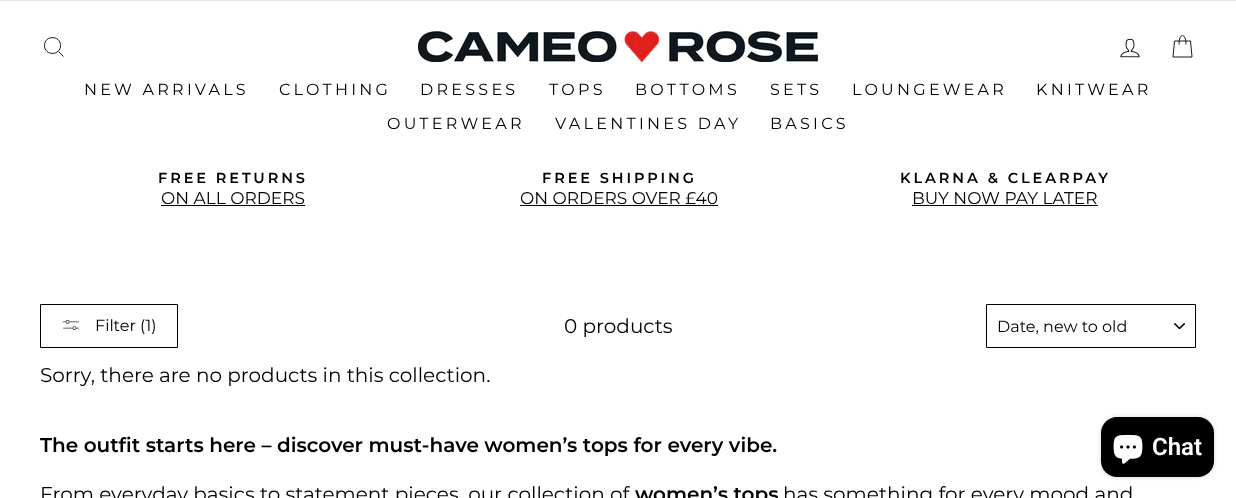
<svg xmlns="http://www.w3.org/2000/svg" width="1236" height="498">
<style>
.a{font:16px Montserrat;letter-spacing:3.25px;fill:#000}
.b{font:600 14.5px Montserrat;letter-spacing:2.9px;fill:#000}
.c{font:17px Montserrat;fill:#000}
.d{font:16px Montserrat;fill:#000}
.e{font:20px Montserrat;fill:#000}
.f{font:600 20px Montserrat;fill:#000}
.g{font:600 24px Roboto;fill:#fff}
</style>
<rect width="100%" height="100%" fill="#fff"/>
<path fill="#e6e6e6" d="M0 0h1236v1H0z"/>
<path fill="none" stroke="#000" stroke-width="0.9" d="M60.5 45.5c0 10.5-16 10.5-16 0c0-10.5 16-10.5 16 0zm3 11l-5-5"/>
<image href="1.png" x="418" y="31" width="400" height="31"/>
<image href="2.png" x="1120" y="38" width="20" height="20"/>
<path fill="none" stroke="#000" stroke-width="0.9" d="M1179 44.5c0-12 7-12 7 0m-11.5-3.5h16l1.5 16h-19z"/>
<path fill="#000" d="M161 205h144v1H161z"/>
<path fill="#000" d="M520 205h198v1H520z"/>
<path fill="#000" d="M912 205h186v1H912z"/>
<path fill="none" stroke="#000" d="M40.5 304.5h137v43H40.5z"/>
<image href="3.png" x="62" y="320" width="18" height="10"/>
<image href="4.png" x="1174" y="323" width="11" height="6"/>
<path fill="none" stroke="#000" d="M986.5 304.5h209v43H986.5z"/>
<rect fill="#00000026" filter="blur(2.5px)" x="1101" y="417" width="113" height="60" rx="16"/>
<rect fill="#000" x="1101" y="417" width="113" height="60" rx="16"/>
<image href="5.png" x="1113" y="435" width="30" height="29"/>
<text class="a" x="84" y="95">NEW ARRIVALS</text>
<text class="a" x="279" y="95">CLOTHING</text>
<text class="a" x="420" y="95">DRESSES</text>
<text class="a" x="549" y="95">TOPS</text>
<text class="a" x="635" y="95">BOTTOMS</text>
<text class="a" x="770" y="95">SETS</text>
<text class="a" x="852" y="95">LOUNGEWEAR</text>
<text class="a" x="1036" y="95">KNITWEAR</text>
<text class="a" x="387" y="129">OUTERWEAR</text>
<text class="a" x="555" y="129">VALENTINES DAY</text>
<text class="a" x="770" y="129">BASICS</text>
<text class="b" x="158" y="183">FREE RETURNS</text>
<text class="c" x="161" y="204">ON ALL ORDERS</text>
<text class="b" x="542" y="183">FREE SHIPPING</text>
<text class="c" x="520" y="204">ON ORDERS OVER £40</text>
<text class="b" x="900" y="183">KLARNA &amp; CLEARPAY</text>
<text class="c" x="912" y="204">BUY NOW PAY LATER</text>
<text class="d" x="95" y="331">Filter (1)</text>
<text class="e" x="564" y="333">0 products</text>
<text class="d" x="997" y="332">Date, new to old</text>
<text class="e" x="40" y="382">Sorry, there are no products in this collection.</text>
<text class="f" x="40" y="452">The outfit starts here – discover must-have women’s tops for every vibe.</text>
<text class="e" x="40" y="501">From everyday basics to statement pieces, our collection of</text>
<text class="f" x="635" y="501">women’s tops</text>
<text class="e" x="783" y="501">has something for every mood and</text>
<text class="g" x="1152" y="455">Chat</text>
</svg>
